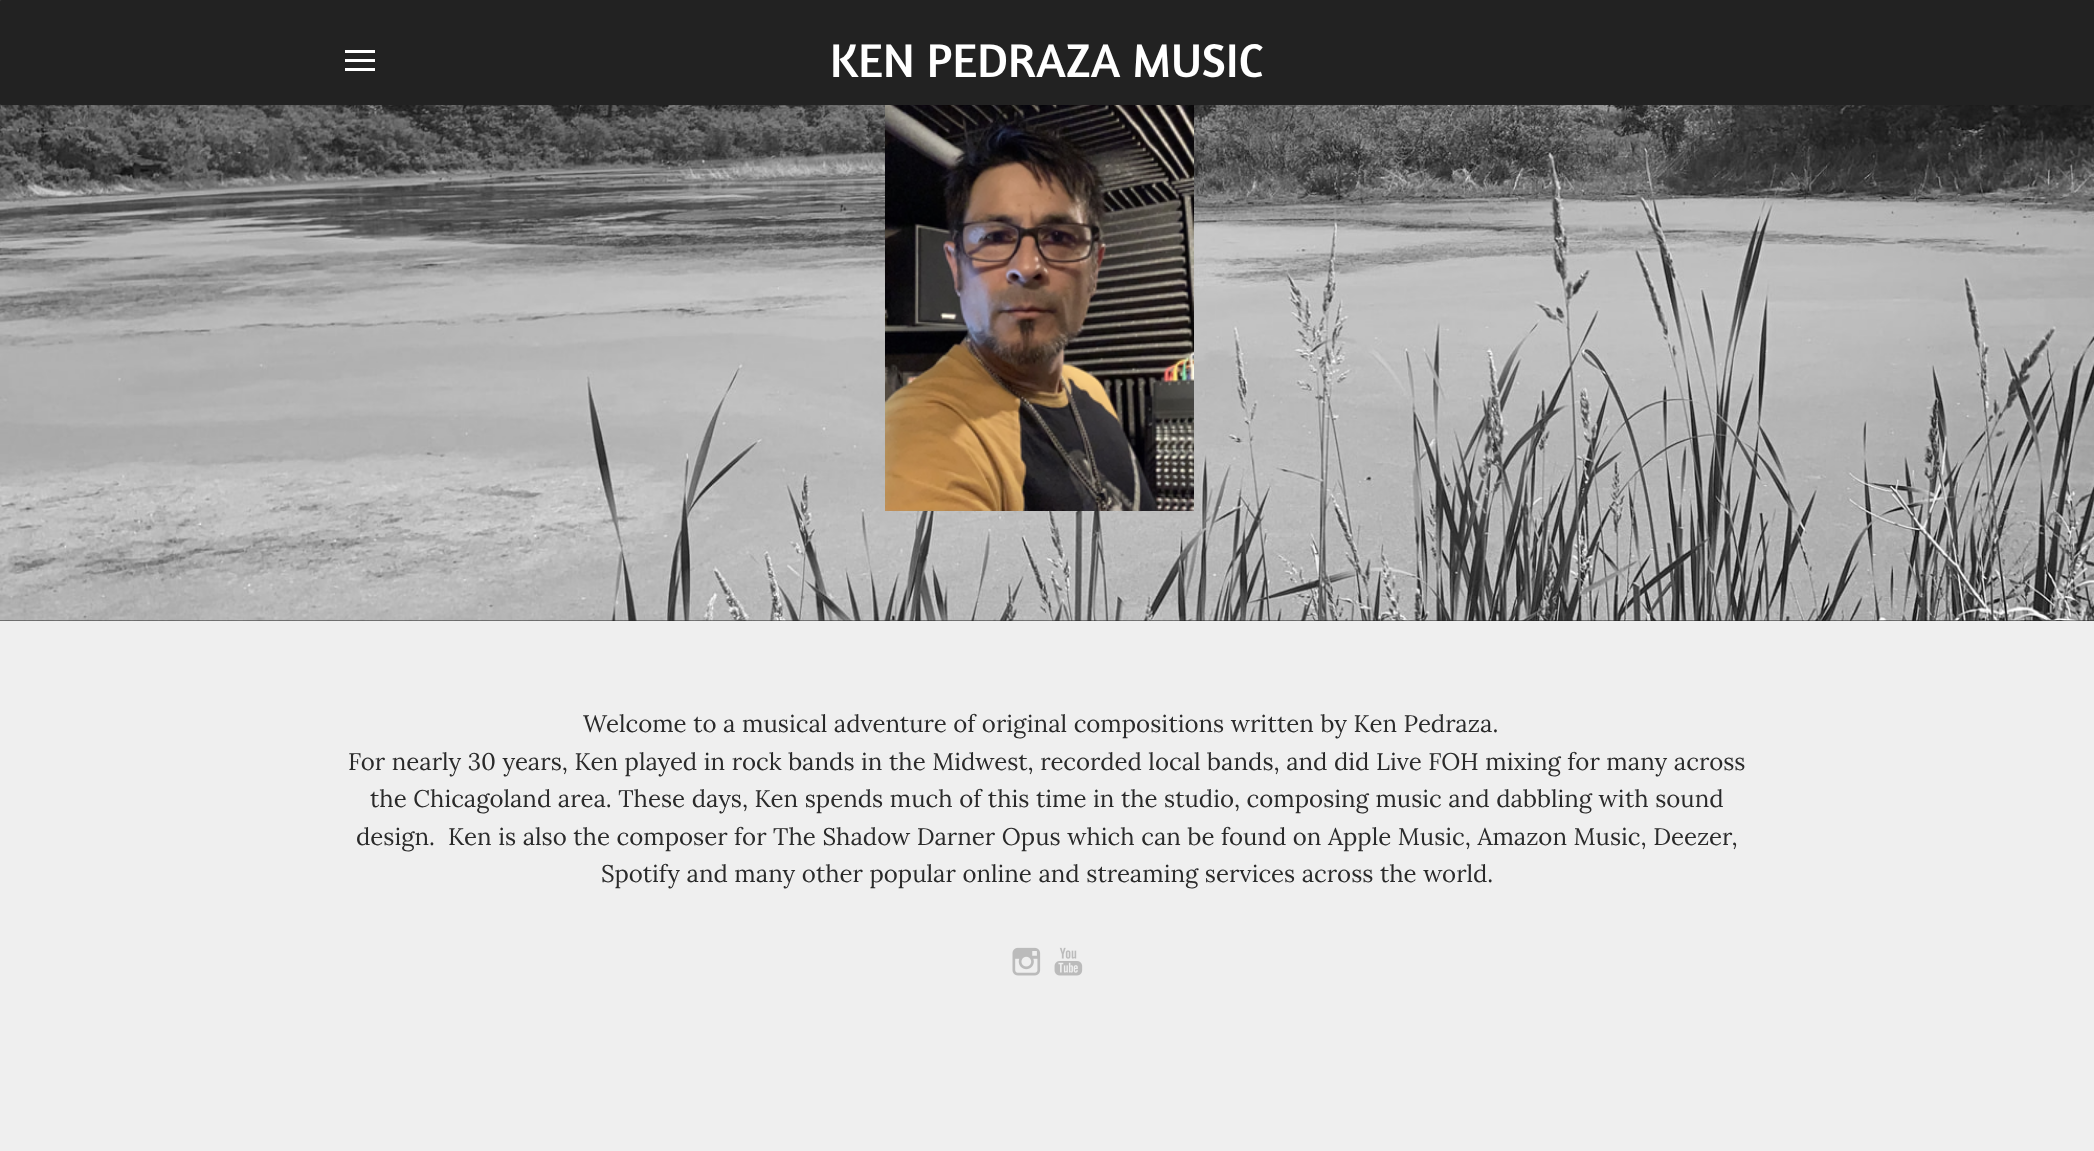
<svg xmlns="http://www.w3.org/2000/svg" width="2094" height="1151">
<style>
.a{font:48px Amaranth;fill:#fff}
.b{font:24px Lora;fill:#2a2a2a}
</style>
<rect width="100%" height="100%" fill="#292929"/>
<image href="1.png" x="0" y="0" width="2094" height="621"/>
<image href="2.png" x="885" y="105" width="309" height="406"/>
<rect fill="#0000000d" filter="blur(4.5px)" y="3" width="2094" height="105" rx="1.5"/>
<rect fill="#222" width="2094" height="105" rx="1.5"/>
<path fill="#fff" d="M345 50h30v3H345z"/>
<path fill="#fff" d="M345 59h30v3H345z"/>
<path fill="#fff" d="M345 68h30v3H345z"/>
<path fill="#efefef" d="M0 621h2094v530H0z"/>
<image href="3.png" x="1012" y="947" width="29" height="29"/>
<image href="4.png" x="1054" y="947" width="29" height="29"/>
<text class="a" x="830" y="77">KEN PEDRAZA MUSIC</text>
<text class="b" x="583" y="732" word-spacing="0.25">Welcome to a musical adventure of original compositions written by Ken Pedraza.</text>
<text class="b" x="348" y="770" word-spacing="0.25">For nearly 30 years, Ken played in rock bands in the Midwest, recorded local bands, and did Live FOH mixing for many across</text>
<text class="b" x="370" y="807" word-spacing="0.25">the Chicagoland area. These days, Ken spends much of this time in the studio, composing music and dabbling with sound</text>
<text class="b" xml:space="preserve" x="356" y="845" word-spacing="0.25">design.  Ken is also the composer for The Shadow Darner Opus which can be found on Apple Music, Amazon Music, Deezer,</text>
<text class="b" x="601" y="882" word-spacing="0.25">Spotify and many other popular online and streaming services across the world.</text>
</svg>
